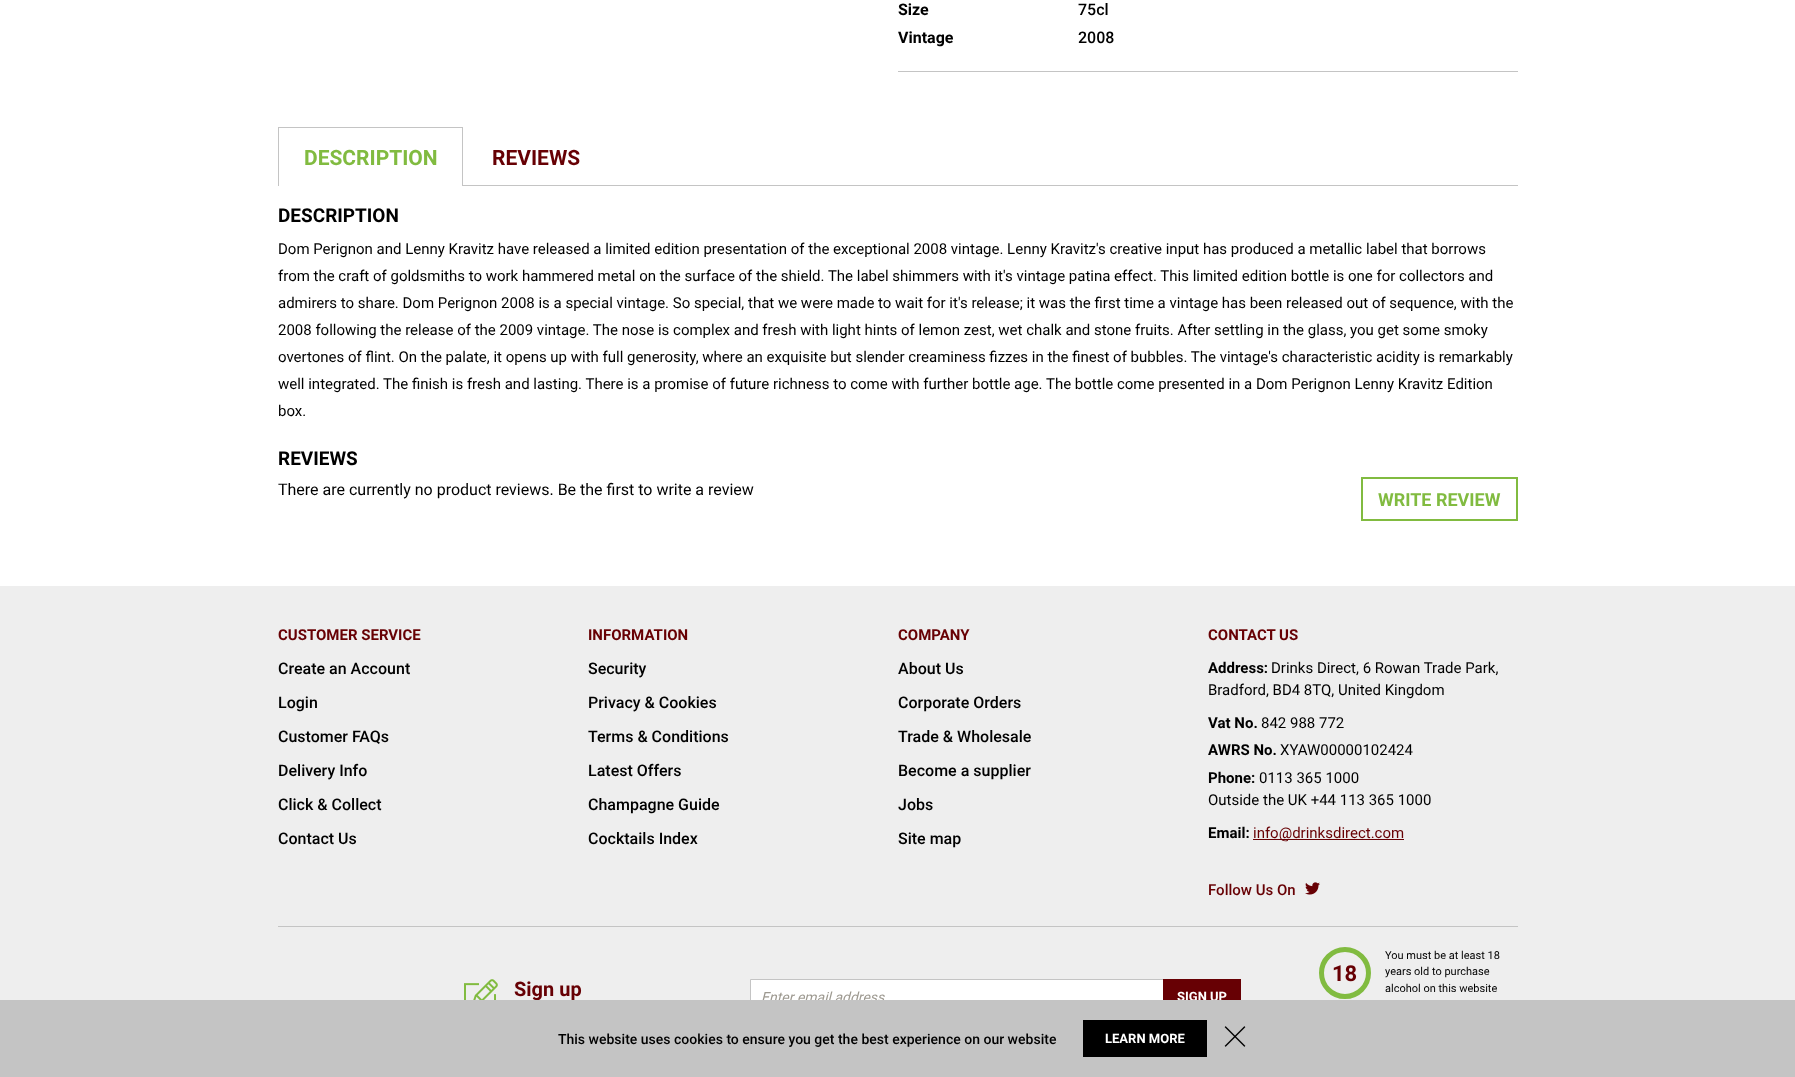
<svg xmlns="http://www.w3.org/2000/svg" width="1795" height="1077">
<style>
.a{font:bold 16px Roboto;fill:#000}
.b{font:500 16px Roboto;fill:#000}
.c{font:bold 21px Roboto;fill:#81bb40}
.d{font:bold 21px Roboto;fill:#670004}
.e{font:bold 19px Roboto;fill:#000}
.f{font:15px Roboto;fill:#000}
.g{font:16px Roboto;fill:#000}
.h{font:bold 18px Roboto;fill:#81bb40}
.i{font:bold 15px Roboto;fill:#670004}
.j{font:bold 15px Roboto;fill:#000}
.k{font:15px Roboto;fill:#670004}
.l{font:500 15px Roboto;fill:#670004}
.m{font:bold 20px Roboto;fill:#670004}
.n{font:italic 14px Roboto;fill:#9d9990}
.o{font:bold 13px Roboto;fill:#fff}
.p{font:bold 22px Roboto;fill:#670004}
.q{font:11px Roboto;fill:#000}
.r{font:500 14px Roboto;fill:#000}
</style>
<rect width="100%" height="100%" fill="#fff"/>
<path fill="#c4c4c4" d="M898 71h620v1H898z"/>
<path fill="#c4c4c4" d="M463 185h1055v1H463z"/>
<path fill="#c4c4c4" d="M278 127h185v1H278z"/>
<path fill="#c4c4c4" d="M462 127h1v59H462z"/>
<path fill="#c4c4c4" d="M278 127h1v59H278z"/>
<path fill="none" stroke="#81bb40" stroke-width="2" d="M1362 478h155v42H1362z"/>
<path fill="#eee" d="M0 586h1795v414H0z"/>
<path fill="#670004" d="M1253 839h151v1H1253z"/>
<image href="1.png" x="1305" y="882" width="15" height="13"/>
<path fill="#c4c4c4" d="M278 926h1240v1H278z"/>
<image href="2.png" x="464" y="979" width="34" height="21"/>
<path fill="#fff" d="M751 980h412v20H751z"/>
<path fill="none" stroke="#c4c4c4" d="M750.5 979.5h418v33H750.5z"/>
<path fill="#670004" d="M1163 979h78v21H1163z"/>
<circle fill="none" stroke="#81bb40" stroke-width="5" cx="1345" cy="973" r="23.5"/>
<text class="a" x="898" y="15">Size</text>
<text class="b" x="1078" y="15">75cl</text>
<text class="a" x="898" y="43">Vintage</text>
<text class="b" x="1078" y="43">2008</text>
<text class="c" x="304" y="165">DESCRIPTION</text>
<text class="d" x="492" y="165">REVIEWS</text>
<text class="e" x="278" y="222">DESCRIPTION</text>
<text class="f" x="278" y="254">Dom Perignon and Lenny Kravitz have released a limited edition presentation of the exceptional 2008 vintage. Lenny Kravitz's creative input has produced a metallic label that borrows</text>
<text class="f" x="278" y="281">from the craft of goldsmiths to work hammered metal on the surface of the shield. The label shimmers with it's vintage patina effect. This limited edition bottle is one for collectors and</text>
<text class="f" x="278" y="308">admirers to share. Dom Perignon 2008 is a special vintage. So special, that we were made to wait for it's release; it was the first time a vintage has been released out of sequence, with the</text>
<text class="f" x="278" y="335">2008 following the release of the 2009 vintage. The nose is complex and fresh with light hints of lemon zest, wet chalk and stone fruits. After settling in the glass, you get some smoky</text>
<text class="f" x="278" y="362">overtones of flint. On the palate, it opens up with full generosity, where an exquisite but slender creaminess fizzes in the finest of bubbles. The vintage's characteristic acidity is remarkably</text>
<text class="f" x="278" y="389">well integrated. The finish is fresh and lasting. There is a promise of future richness to come with further bottle age. The bottle come presented in a Dom Perignon Lenny Kravitz Edition</text>
<text class="f" x="278" y="416">box.</text>
<text class="e" x="278" y="465">REVIEWS</text>
<text class="g" x="278" y="495">There are currently no product reviews. Be the first to write a review</text>
<text class="h" x="1378" y="506">WRITE REVIEW</text>
<text class="i" x="278" y="640">CUSTOMER SERVICE</text>
<text class="b" x="278" y="674">Create an Account</text>
<text class="b" x="278" y="708">Login</text>
<text class="b" x="278" y="742">Customer FAQs</text>
<text class="b" x="278" y="776">Delivery Info</text>
<text class="b" x="278" y="810">Click &amp; Collect</text>
<text class="b" x="278" y="844">Contact Us</text>
<text class="i" x="588" y="640">INFORMATION</text>
<text class="b" x="588" y="674">Security</text>
<text class="b" x="588" y="708">Privacy &amp; Cookies</text>
<text class="b" x="588" y="742">Terms &amp; Conditions</text>
<text class="b" x="588" y="776">Latest Offers</text>
<text class="b" x="588" y="810">Champagne Guide</text>
<text class="b" x="588" y="844">Cocktails Index</text>
<text class="i" x="898" y="640">COMPANY</text>
<text class="b" x="898" y="674">About Us</text>
<text class="b" x="898" y="708">Corporate Orders</text>
<text class="b" x="898" y="742">Trade &amp; Wholesale</text>
<text class="b" x="898" y="776">Become a supplier</text>
<text class="b" x="898" y="810">Jobs</text>
<text class="b" x="898" y="844">Site map</text>
<text class="i" x="1208" y="640">CONTACT US</text>
<text class="j" x="1208" y="673">Address:</text>
<text class="f" x="1271" y="673">Drinks Direct, 6 Rowan Trade Park,</text>
<text class="f" x="1208" y="695">Bradford, BD4 8TQ, United Kingdom</text>
<text class="j" x="1208" y="728">Vat No.</text>
<text class="f" x="1261" y="728">842 988 772</text>
<text class="j" x="1208" y="755">AWRS No.</text>
<text class="f" x="1280" y="755">XYAW00000102424</text>
<text class="j" x="1208" y="783">Phone:</text>
<text class="f" x="1259" y="783">0113 365 1000</text>
<text class="f" x="1208" y="805">Outside the UK +44 113 365 1000</text>
<text class="j" x="1208" y="838">Email:</text>
<text class="k" x="1253" y="838">info@drinksdirect.com</text>
<text class="l" x="1208" y="895">Follow Us On</text>
<text class="m" x="514" y="996">Sign up</text>
<text class="n" x="761" y="1002">Enter email address</text>
<text class="o" x="1177" y="1001">SIGN UP</text>
<text class="p" x="1332" y="981">18</text>
<text class="q" x="1385" y="959">You must be at least 18</text>
<text class="q" x="1385" y="975">years old to purchase</text>
<text class="q" x="1385" y="992">alcohol on this website</text>
<path fill="#c4c4c4" d="M0 1000h1795v77H0z"/>
<text class="r" x="558" y="1044">This website uses cookies to ensure you get the best experience on our website</text>
<path fill="#000" d="M1083 1020h124v37H1083z"/>
<text class="o" x="1105" y="1043">LEARN MORE</text>
<image href="3.png" x="1224" y="1026" width="22" height="21"/>
</svg>
